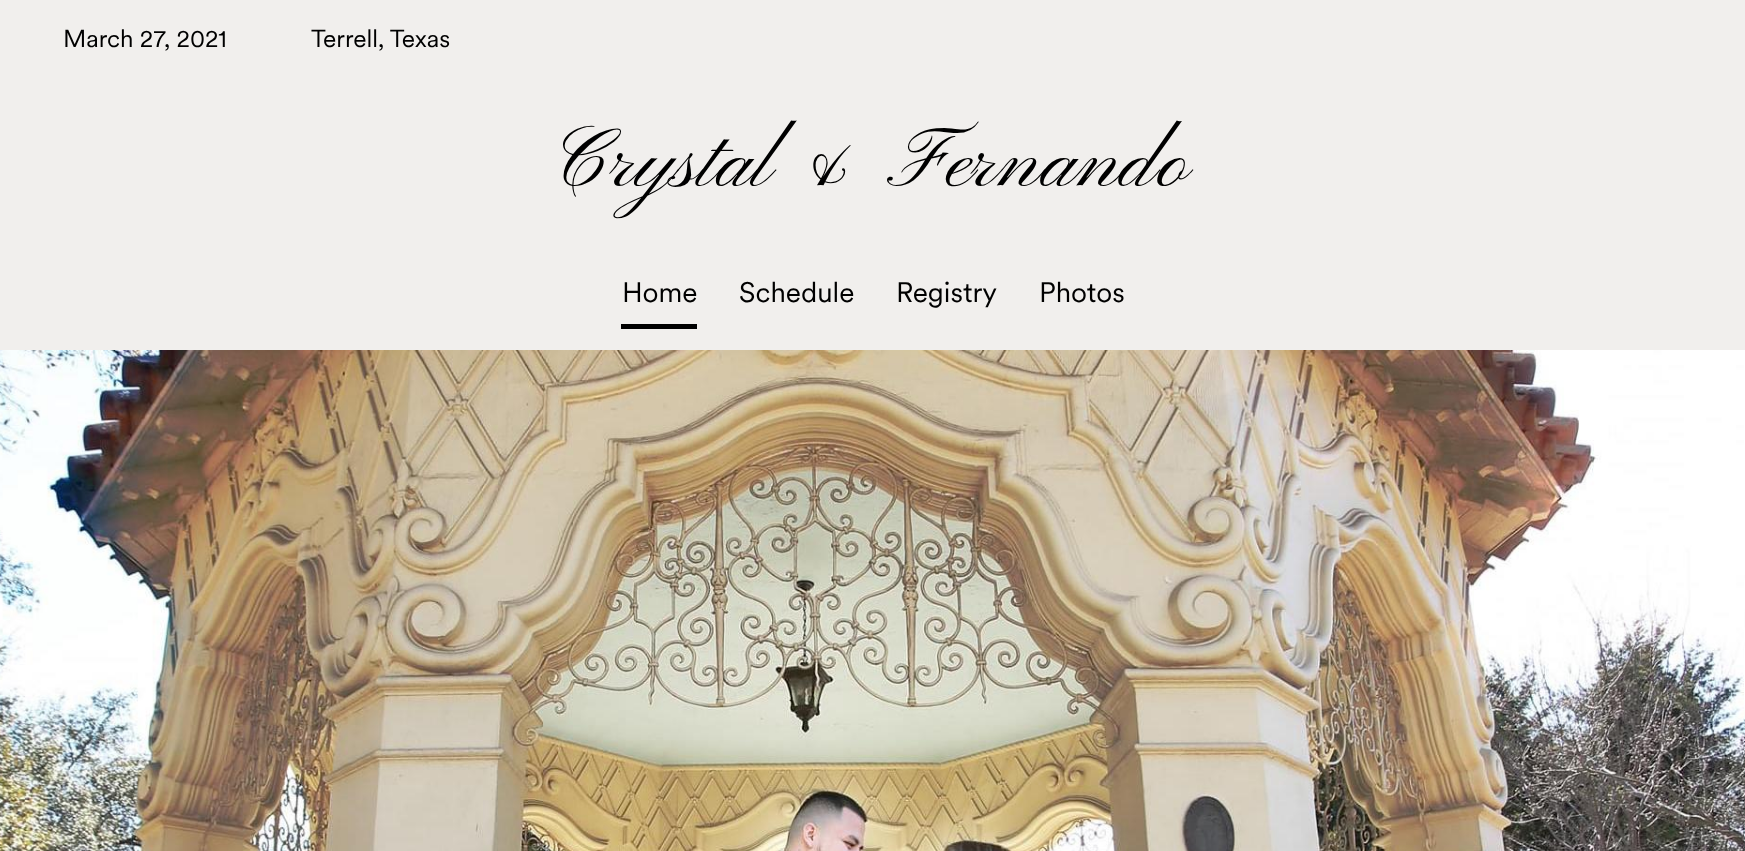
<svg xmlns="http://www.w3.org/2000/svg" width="1745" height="851">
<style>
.a{font:24.5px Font;fill:#000}
.b{font:84px Pinyon Script;fill:#000}
.c{font:28px Font;fill:#000}
</style>
<rect width="100%" height="100%" fill="#f1efed"/>
<path fill="#000" d="M621 324h76v5H621z"/>
<image href="1.png" x="0" y="350" width="1745" height="501"/>
<text class="a" x="63" y="47">March 27, 2021</text>
<text class="a" x="311" y="47">Terrell, Texas</text>
<text class="b" x="557" y="186">Crystal &amp; Fernando</text>
<text class="c" x="622" y="302">Home</text>
<text class="c" x="739" y="302">Schedule</text>
<text class="c" x="896" y="302">Registry</text>
<text class="c" x="1039" y="302">Photos</text>
</svg>
